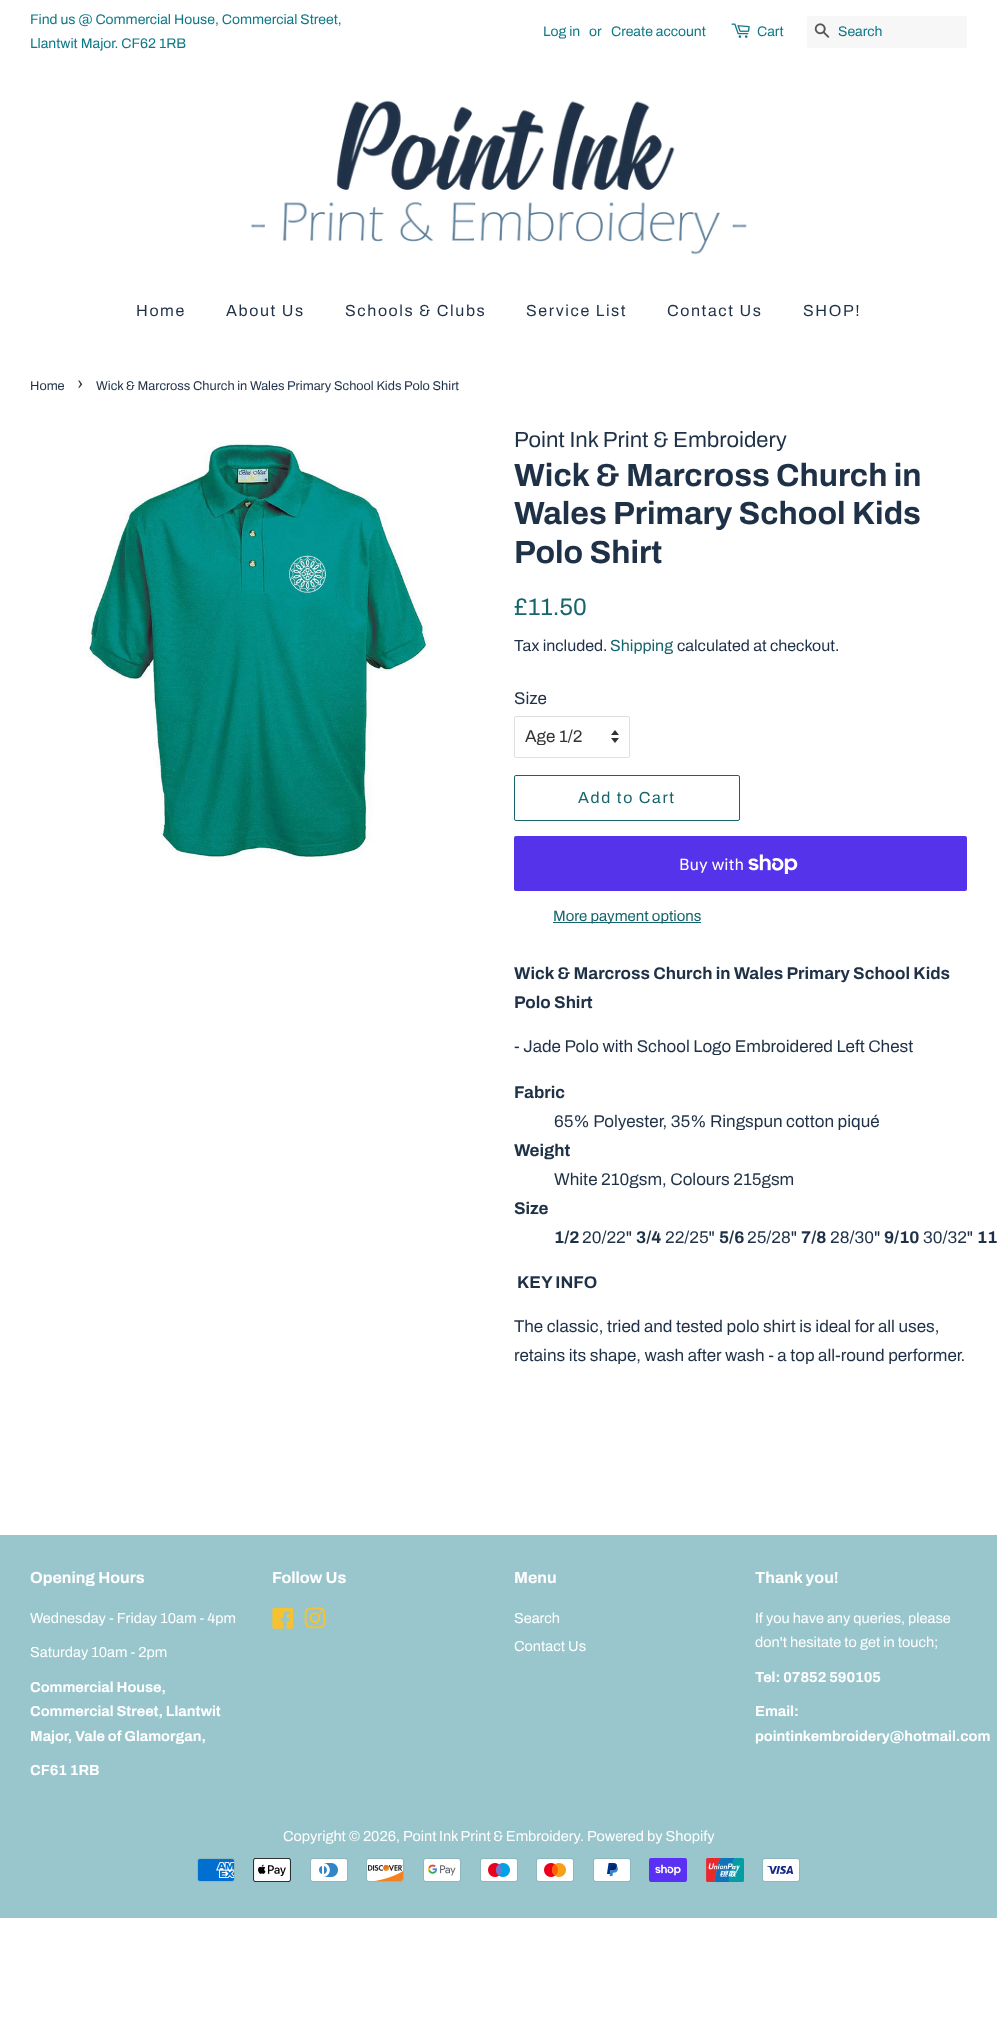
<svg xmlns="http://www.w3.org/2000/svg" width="997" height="2036">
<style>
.a{font:14px Archivo;fill:#0e7887}
.b{font:16px Archivo;letter-spacing:1.6px;fill:#1f3147}
.c{font:12.75px Archivo;fill:#1f3147}
.d{font:18px Archivo;fill:#1f3147}
.e{font:22px Archivo;fill:#1f3147}
.f{font:bold 32px Archivo;fill:#1f3147}
.g{font:24px Archivo;fill:#17656c}
.h{font:16px Archivo;fill:#1f3147}
.i{font:16px Archivo;fill:#17656c}
.j{font:17px Archivo;fill:#1f3147}
.k{font:17px Archivo;fill:#333}
.l{font:16px Archivo;letter-spacing:1.6px;fill:#17656c}
.m{font:16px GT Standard;fill:#fff}
.n{font:15px Archivo;fill:#17656c}
.o{font:bold 17px Archivo;fill:#1f3147}
.p{font:bold 16px Archivo;fill:#fff}
.q{font:14.5px Archivo;fill:#fff}
.r{font:bold 14.5px Archivo;fill:#fff}
</style>
<rect width="100%" height="100%" fill="#fff"/>
<image href="1.png" x="731" y="23" width="19" height="15"/>
<rect fill="#f7f7f7" x="807" y="16" width="160" height="32" rx="2"/>
<image href="2.png" x="814" y="23" width="16" height="15"/>
<image href="3.png" x="251" y="100" width="496" height="155"/>
<image href="4.png" x="87" y="441" width="343" height="420"/>
<image href="5.png" x="611" y="730" width="8" height="13"/>
<rect fill="none" stroke="#dde0e3" x="514.5" y="716.5" width="115" height="41" rx="1.5"/>
<rect fill="none" stroke="#17656c" x="514.5" y="775.5" width="225" height="45" rx="1.5"/>
<rect fill="#5433eb" x="514" y="836" width="453" height="55" rx="2"/>
<image href="6.png" x="748" y="854" width="50" height="20"/>
<path fill="#17656c" d="M553 922h148v1H553z"/>
<path fill="#98c6cc" d="M0 1535h997v383H0z"/>
<image href="7.png" x="272" y="1608" width="21" height="21"/>
<image href="8.png" x="304" y="1607" width="22" height="22"/>
<image href="9.png" x="197" y="1858" width="38" height="24"/>
<image href="10.png" x="253" y="1858" width="38" height="24"/>
<image href="11.png" x="310" y="1858" width="38" height="24"/>
<image href="12.png" x="366" y="1858" width="38" height="24"/>
<image href="13.png" x="423" y="1858" width="38" height="24"/>
<image href="14.png" x="480" y="1858" width="38" height="24"/>
<image href="15.png" x="536" y="1858" width="38" height="24"/>
<image href="16.png" x="593" y="1858" width="38" height="24"/>
<image href="17.png" x="649" y="1858" width="38" height="24"/>
<image href="18.png" x="706" y="1858" width="38" height="24"/>
<image href="19.png" x="762" y="1858" width="38" height="24"/>
<text class="a" x="30" y="24">Find us @ Commercial House, Commercial Street,</text>
<text class="a" x="30" y="48">Llantwit Major. CF62 1RB</text>
<text class="a" x="543" y="36">Log in</text>
<text class="a" x="589" y="36">or</text>
<text class="a" x="611" y="36">Create account</text>
<text class="a" x="757" y="36">Cart</text>
<text class="a" x="838" y="36">Search</text>
<text class="b" x="136" y="316">Home</text>
<text class="b" x="226" y="316">About Us</text>
<text class="b" x="345" y="316">Schools &amp; Clubs</text>
<text class="b" x="526" y="316">Service List</text>
<text class="b" x="667" y="316">Contact Us</text>
<text class="b" x="803" y="316">SHOP!</text>
<text class="c" x="30" y="390">Home</text>
<text class="d" x="77" y="390">›</text>
<text class="c" x="96" y="390">Wick &amp; Marcross Church in Wales Primary School Kids Polo Shirt</text>
<text class="e" x="514" y="447">Point Ink Print &amp; Embroidery</text>
<text class="f" x="514" y="486">Wick &amp; Marcross Church in</text>
<text class="f" x="514" y="524">Wales Primary School Kids</text>
<text class="f" x="514" y="563">Polo Shirt</text>
<text class="g" x="514" y="615">£11.50</text>
<text class="h" x="514" y="651">Tax included.</text>
<text class="i" x="610" y="651">Shipping</text>
<text class="h" x="677" y="651">calculated at checkout.</text>
<text class="j" x="514" y="704">Size</text>
<text class="k" x="525" y="742">Age 1/2</text>
<text class="l" x="578" y="803">Add to Cart</text>
<text class="m" x="679" y="870">Buy with</text>
<text class="n" x="553" y="921">More payment options</text>
<text class="o" x="514" y="979">Wick &amp; Marcross Church in Wales Primary School Kids</text>
<text class="o" x="514" y="1008">Polo Shirt</text>
<text class="j" x="514" y="1052">- Jade Polo with School Logo Embroidered Left Chest</text>
<text class="o" x="514" y="1098">Fabric</text>
<text class="j" x="554" y="1127">65% Polyester, 35% Ringspun cotton piqué</text>
<text class="o" x="514" y="1156">Weight</text>
<text class="j" x="554" y="1185">White 210gsm, Colours 215gsm</text>
<text class="o" x="514" y="1214">Size</text>
<text class="o" x="554" y="1243">1/2</text>
<text class="j" x="582" y="1243">20/22"</text>
<text class="o" x="636" y="1243">3/4</text>
<text class="j" x="665" y="1243">22/25"</text>
<text class="o" x="719" y="1243">5/6</text>
<text class="j" x="747" y="1243">25/28"</text>
<text class="o" x="801" y="1243">7/8</text>
<text class="j" x="830" y="1243">28/30"</text>
<text class="o" x="884" y="1243">9/10</text>
<text class="j" x="923" y="1243">30/32"</text>
<text class="o" x="977" y="1243">11</text>
<text class="o" x="517" y="1288">KEY INFO</text>
<text class="j" x="514" y="1332">The classic, tried and tested polo shirt is ideal for all uses,</text>
<text class="j" x="514" y="1361">retains its shape, wash after wash - a top all-round performer.</text>
<text class="p" x="30" y="1583">Opening Hours</text>
<text class="q" x="30" y="1623">Wednesday - Friday 10am - 4pm</text>
<text class="q" x="30" y="1657">Saturday 10am - 2pm</text>
<text class="r" x="30" y="1692">Commercial House,</text>
<text class="r" x="30" y="1716">Commercial Street, Llantwit</text>
<text class="r" x="30" y="1741">Major, Vale of Glamorgan,</text>
<text class="r" x="30" y="1775">CF61 1RB</text>
<text class="p" x="272" y="1583">Follow Us</text>
<text class="p" x="514" y="1583">Menu</text>
<text class="q" x="514" y="1623">Search</text>
<text class="q" x="514" y="1651">Contact Us</text>
<text class="p" x="755" y="1583">Thank you!</text>
<text class="q" x="755" y="1623">If you have any queries, please</text>
<text class="q" x="755" y="1647">don't hesitate to get in touch;</text>
<text class="r" x="755" y="1682">Tel: 07852 590105</text>
<text class="r" x="755" y="1716">Email:</text>
<text class="r" x="755" y="1741">pointinkembroidery@hotmail.com</text>
<text class="q" x="283" y="1841">Copyright © 2026,</text>
<text class="q" x="403" y="1841" word-spacing="-0.5">Point Ink Print &amp; Embroidery</text>
<text class="q" x="580" y="1841">. Powered by Shopify</text>
</svg>
